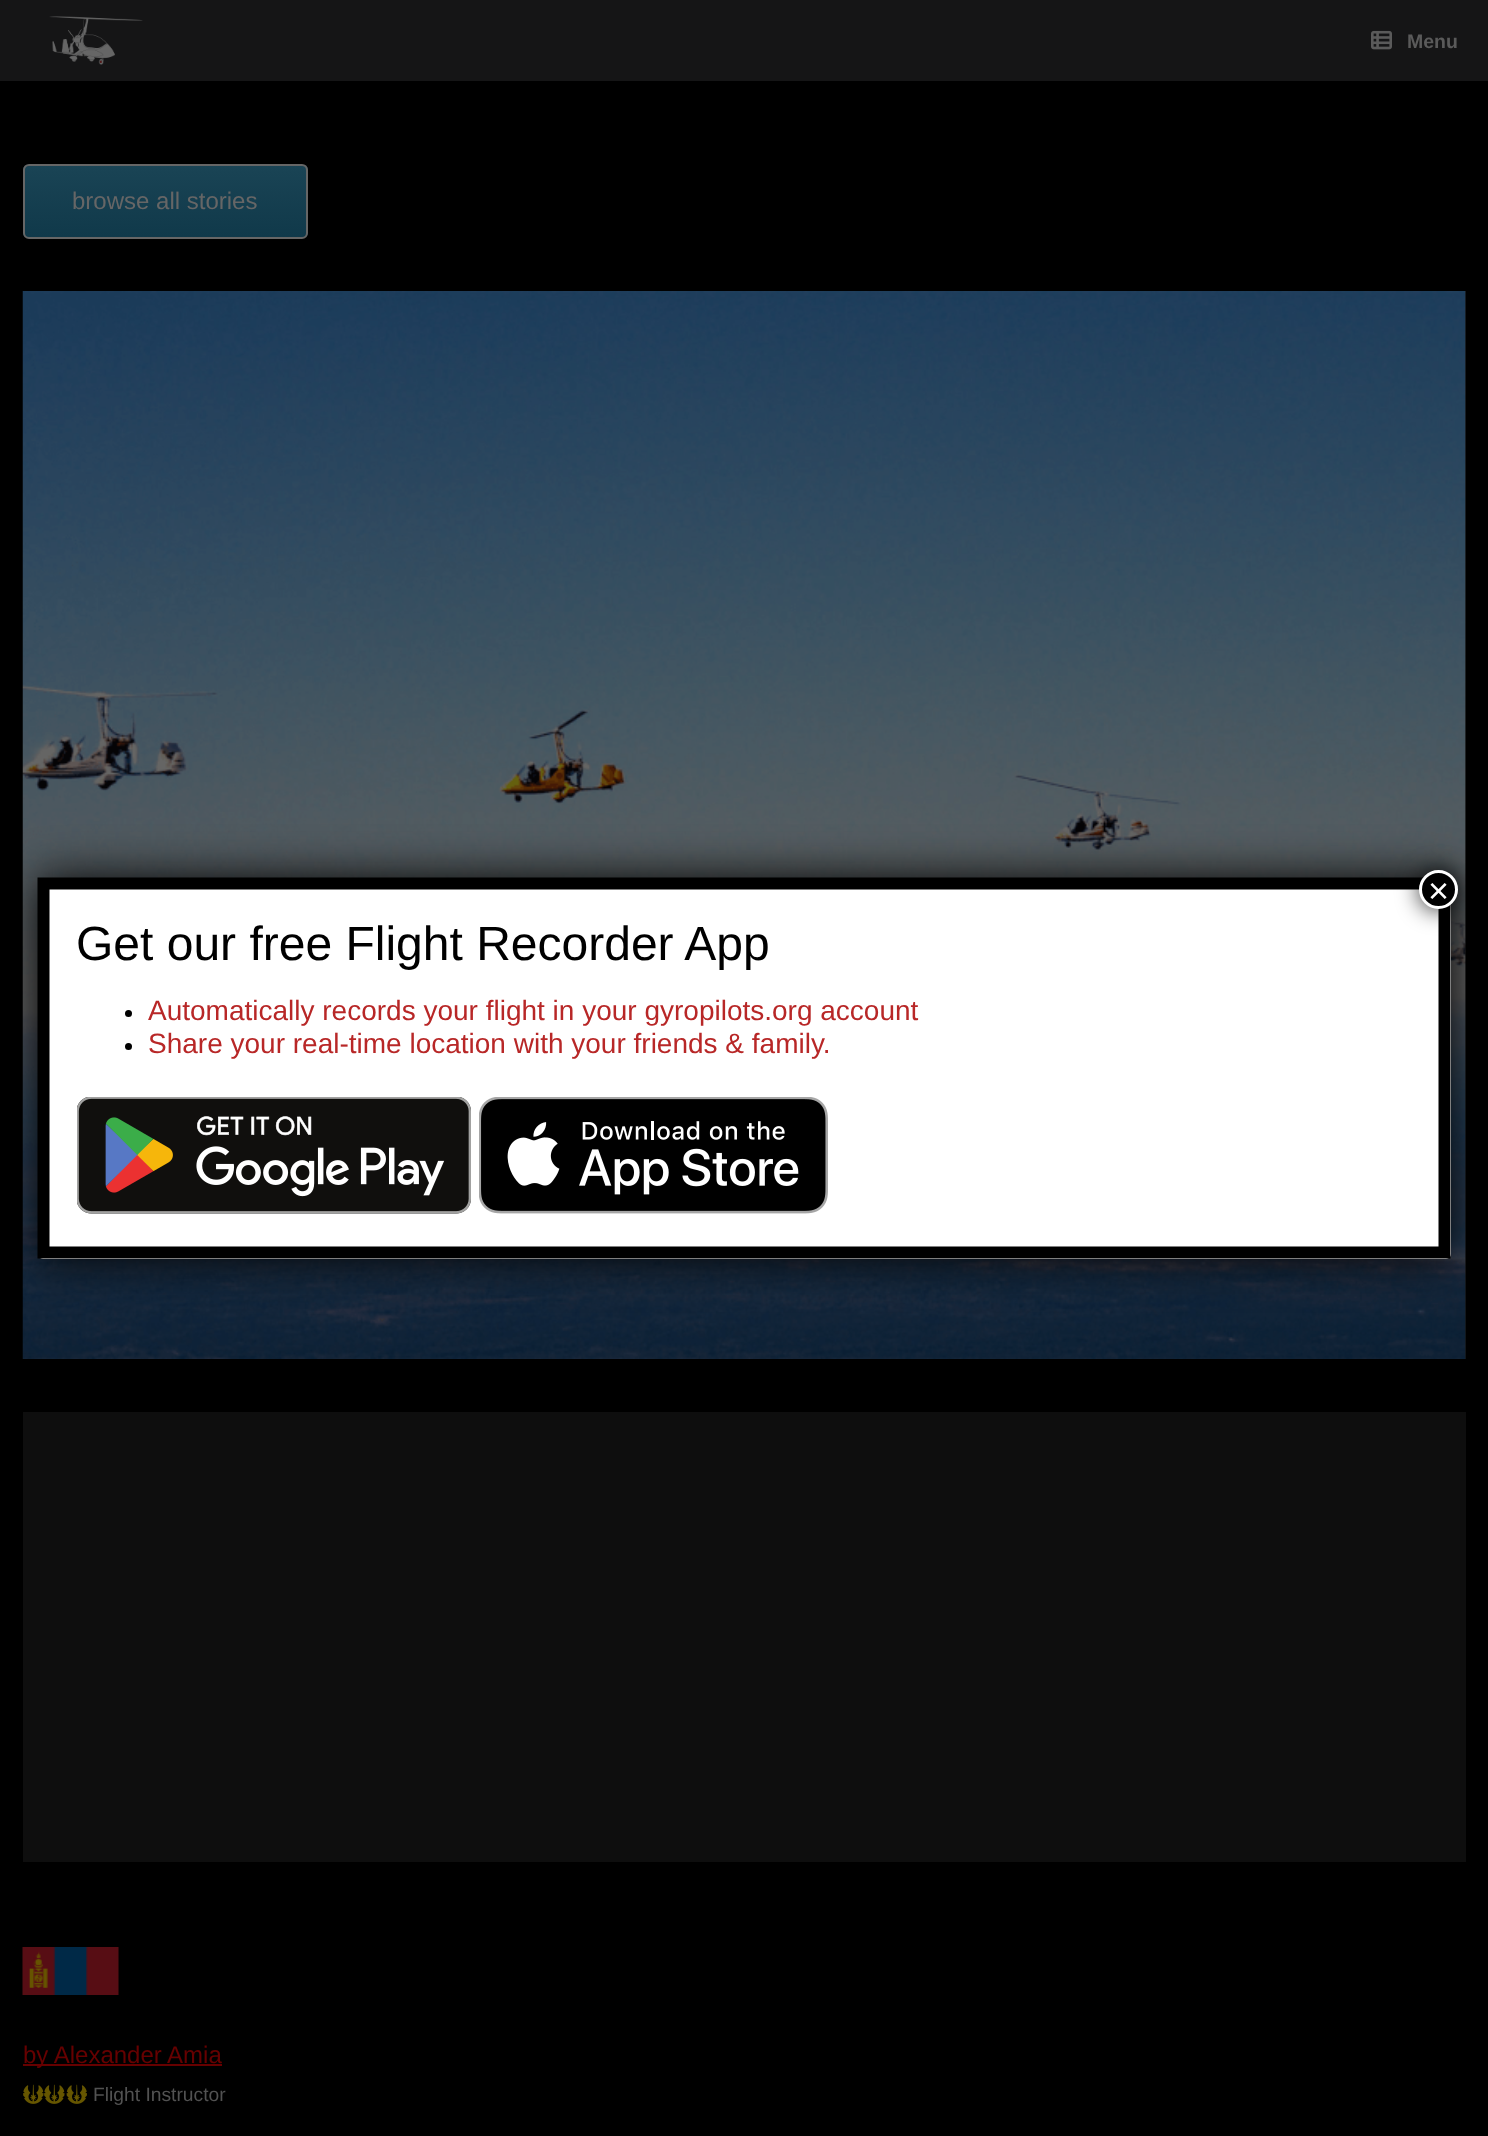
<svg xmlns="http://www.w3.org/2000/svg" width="1488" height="2136">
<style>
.a{font:bold 19.5px Liberation Sans;fill:#5a5a5a}
.b{font:24px Liberation Sans;fill:#666}
.c{font:24px Liberation Sans;fill:#600}
.d{font:19.25px Liberation Sans;fill:#525252}
.e{font:36px Liberation Sans;fill:#fff}
.f{font:48px Liberation Sans;fill:#000}
.g{font:28px Liberation Sans;fill:#b82727}
</style>
<defs>
<clipPath id="clip1"><rect x="23" y="164" width="285" height="75" rx="6"/></clipPath>
<linearGradient id="g1" gradientUnits="userSpaceOnUse" x1="24" y1="237" x2="24" y2="165"><stop offset="0" stop-color="#10394a"/><stop offset="1" stop-color="#1a4455"/></linearGradient>
</defs>
<rect width="100%" height="100%" fill="#000"/>
<path fill="#151516" d="M0 0h1488v81H0z"/>
<image href="1.png" x="49" y="16" width="94" height="49"/>
<image href="2.png" x="1371" y="30" width="21" height="20"/>
<g clip-path="url(#clip1)">
<path fill="url(#g1)" d="M23 165h285v72H23z"/>
</g>
<path fill="#294a58" d="M28 166h274c2 0 4 3 4 5v-1c0-3-2-5-5-5h-272c-3 0-5 2-5 5v1c0-2 2-5 4-5z"/>
<rect fill="none" stroke="#666" stroke-width="2" x="24" y="165" width="283" height="73" rx="5"/>
<path fill="#141414" d="M1465 291h1v1068H1465z"/>
<image href="3.png" x="22" y="291" width="1444" height="1068"/>
<path fill="#0e0e0e" d="M23 1412h1443v450H23z"/>
<image href="4.png" x="22" y="1947" width="97" height="48"/>
<path fill="#600" d="M23 2064h199v2H23z"/>
<image href="5.png" x="23" y="2084" width="21" height="20"/>
<image href="5.png" x="44" y="2084" width="21" height="20"/>
<image href="6.png" x="66" y="2084" width="21" height="20"/>
<rect fill="#020202" filter="blur(22.5px)" x="38" y="878" width="1413" height="381" rx="5"/>
<rect fill="#fff" x="38" y="878" width="1413" height="381" rx="5"/>
<path fill="none" stroke="#000" stroke-width="12" d="M43.5 883.5h1401v369h-1401z"/>
<rect fill="#020202bf" filter="blur(11px)" x="1418" y="869" width="42" height="42" rx="21"/>
<circle fill="#000" stroke="#fff" stroke-width="3" cx="1438.5" cy="889.5" r="18"/>
<circle fill="#000" cx="128.5" cy="1013.5" r="3.5"/>
<circle fill="#000" cx="128.5" cy="1046.5" r="3.5"/>
<image href="7.png" x="77" y="1097" width="394" height="117"/>
<image href="8.png" x="479" y="1097" width="349" height="117"/>
<text class="a" x="1407" y="48">Menu</text>
<text class="b" x="72" y="209">browse all stories</text>
<text class="c" x="23" y="2063">by Alexander Amia</text>
<text class="d" x="93" y="2101">Flight Instructor</text>
<text class="e" x="1428" y="903">×</text>
<text class="f" x="76" y="960">Get our free Flight Recorder App</text>
<text class="g" x="148" y="1020">Automatically records your flight in your gyropilots.org account</text>
<text class="g" x="148" y="1053">Share your real-time location with your friends &amp; family.</text>
</svg>
